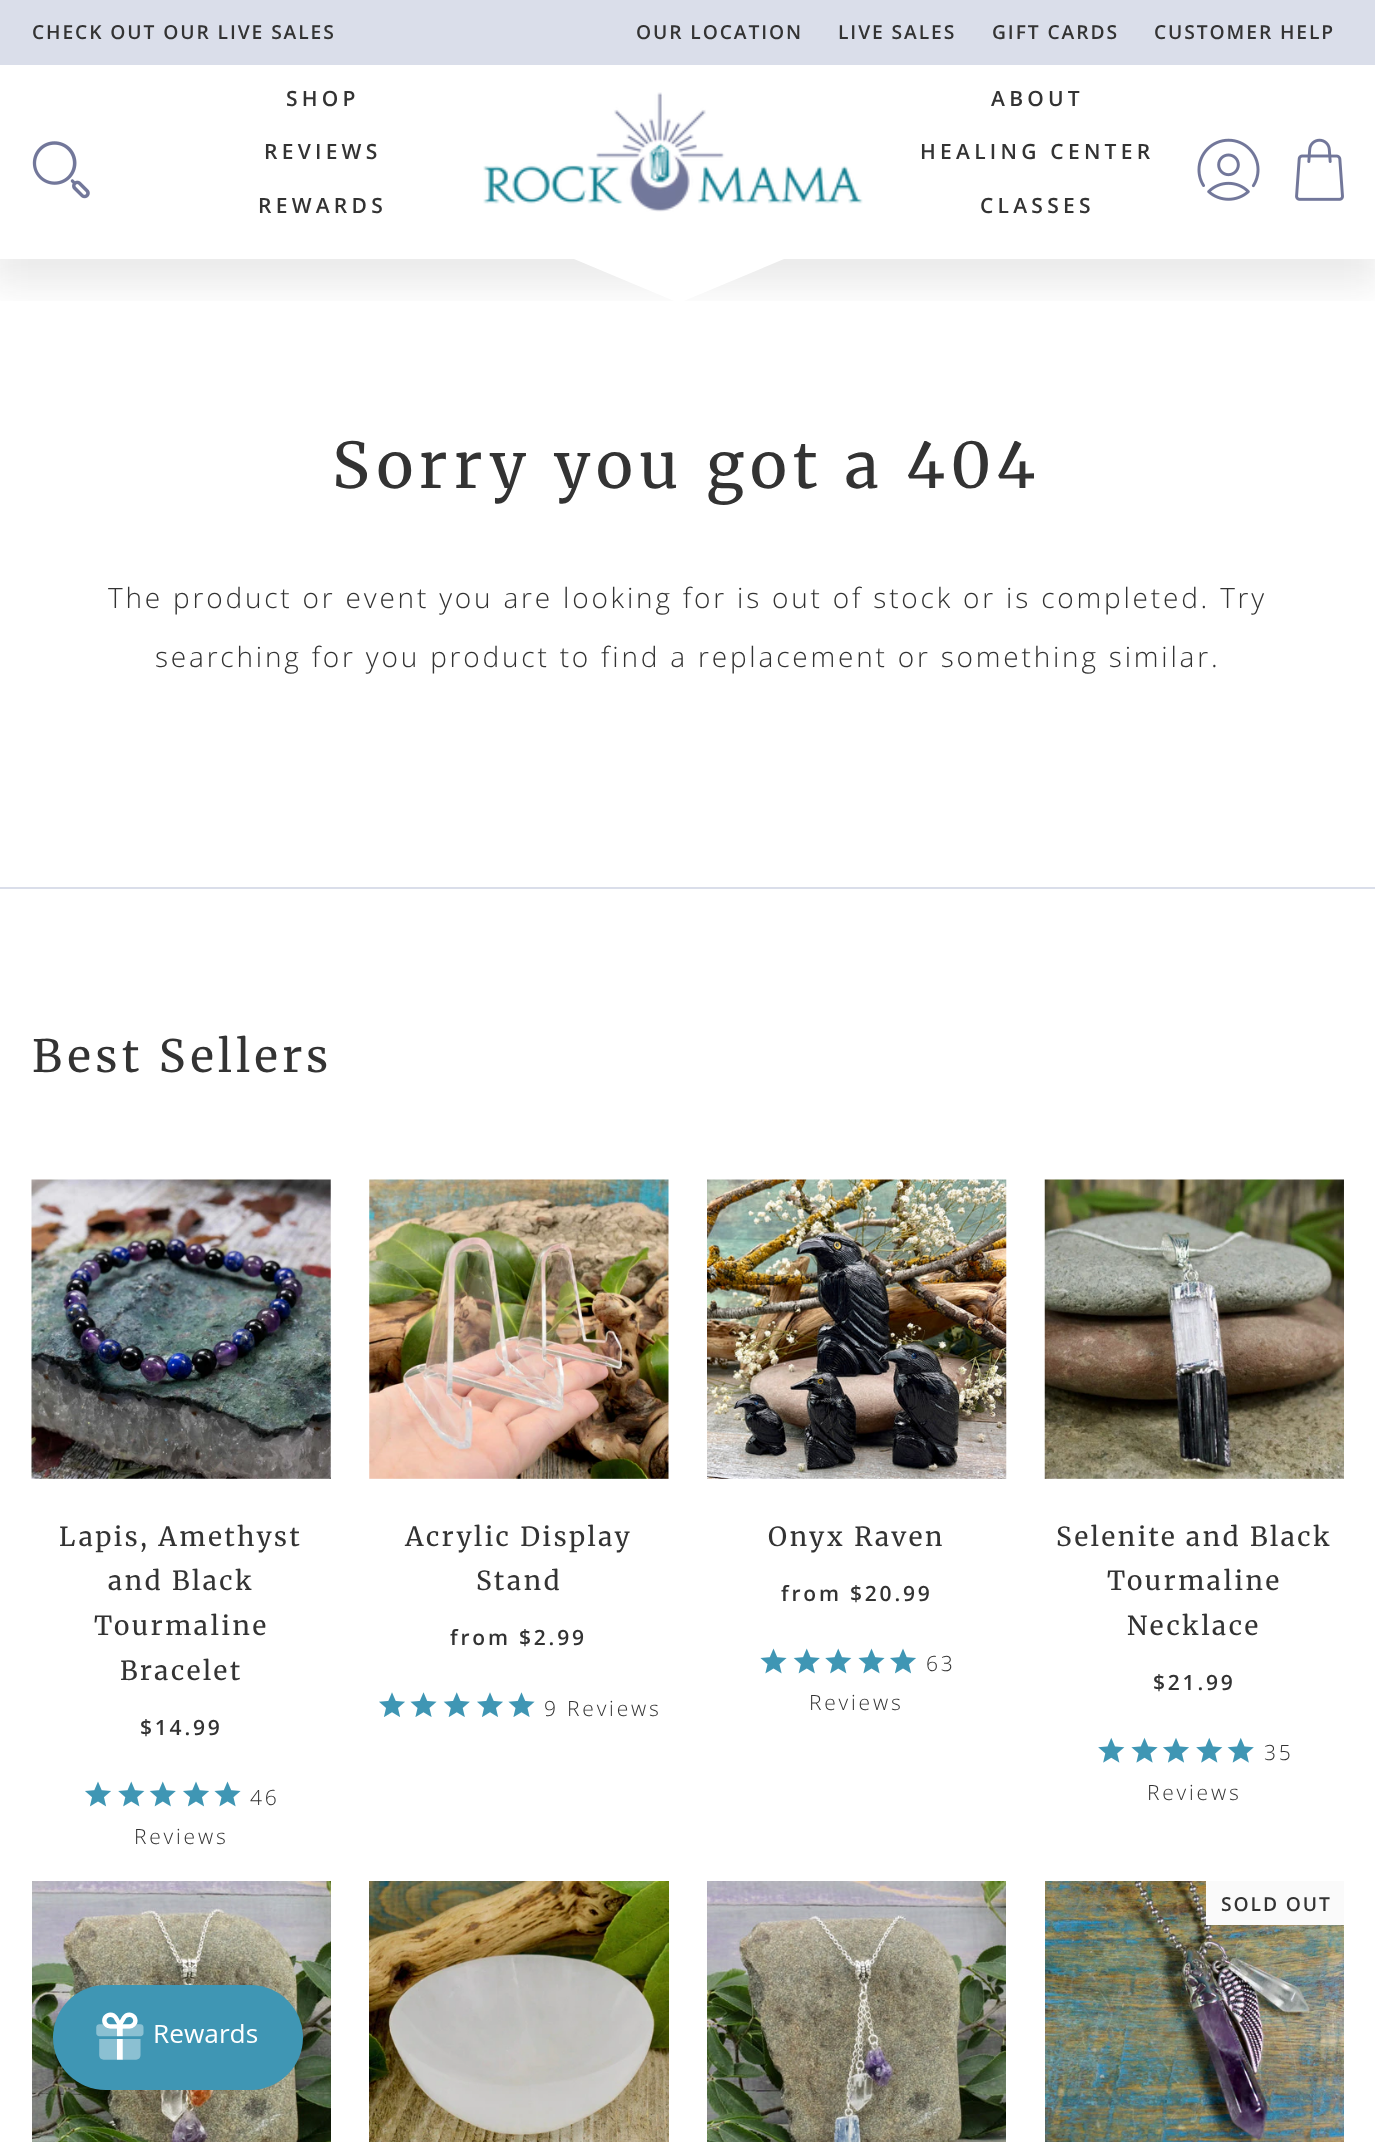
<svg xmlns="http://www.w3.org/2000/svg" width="1375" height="2142">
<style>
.a{font:600 19.25px Open Sans;letter-spacing:1.9px;fill:#333}
.b{font:600 21px Open Sans;letter-spacing:4.25px;fill:#333}
.c{font:300 63px Merriweather;letter-spacing:6.25px;fill:#333}
.d{font:300 28px Open Sans;letter-spacing:2.8px;fill:#333}
.e{font:300 44.5px Merriweather;letter-spacing:4.5px;fill:#333}
.f{font:300 26.25px Merriweather;letter-spacing:2.6px;fill:#333}
.g{font:600 21px Open Sans;letter-spacing:2.8px;fill:#333}
.h{font:300 21px Open Sans;letter-spacing:2.8px;fill:#333}
</style>
<defs>
<clipPath id="clip1"><path d="M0 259h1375v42H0z"/></clipPath>
</defs>
<rect width="100%" height="100%" fill="#fff"/>
<path fill="#dadeea" d="M0 0h1375v65H0z"/>
<g clip-path="url(#clip1)">
<path fill="#3333331a" filter="blur(18.5px)" d="M-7 81h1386v204H-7z"/>
</g>
<image href="1.png" x="32" y="141" width="58" height="58"/>
<image href="2.png" x="483" y="92" width="380" height="120"/>
<image href="3.png" x="1197" y="138" width="63" height="63"/>
<image href="4.png" x="1295" y="138" width="49" height="63"/>
<path fill="#fff" d="M574 259h210l-105 44z"/>
<path fill="#dadeea" d="M0 887h1375v2H0z"/>
<image href="5.png" x="31" y="1179" width="300" height="300"/>
<image href="6.png" x="85" y="1781" width="26" height="26"/>
<image href="7.png" x="118" y="1781" width="27" height="26"/>
<image href="8.png" x="149" y="1781" width="27" height="26"/>
<image href="6.png" x="183" y="1781" width="26" height="26"/>
<image href="9.png" x="214" y="1781" width="27" height="26"/>
<image href="10.png" x="369" y="1179" width="300" height="300"/>
<image href="11.png" x="379" y="1692" width="26" height="25"/>
<image href="12.png" x="410" y="1692" width="27" height="25"/>
<image href="13.png" x="443" y="1692" width="27" height="25"/>
<image href="11.png" x="477" y="1692" width="26" height="25"/>
<image href="12.png" x="508" y="1692" width="27" height="25"/>
<image href="14.png" x="707" y="1179" width="300" height="300"/>
<image href="9.png" x="760" y="1648" width="27" height="26"/>
<image href="8.png" x="793" y="1648" width="27" height="26"/>
<image href="7.png" x="825" y="1648" width="27" height="26"/>
<image href="9.png" x="858" y="1648" width="27" height="26"/>
<image href="6.png" x="890" y="1648" width="26" height="26"/>
<image href="15.png" x="1044" y="1179" width="300" height="300"/>
<image href="16.png" x="1098" y="1737" width="27" height="26"/>
<image href="17.png" x="1131" y="1737" width="27" height="26"/>
<image href="18.png" x="1163" y="1738" width="26" height="25"/>
<image href="16.png" x="1196" y="1737" width="27" height="26"/>
<image href="19.png" x="1227" y="1737" width="27" height="26"/>
<image href="20.png" x="32" y="1881" width="299" height="261"/>
<image href="21.png" x="369" y="1881" width="300" height="261"/>
<image href="22.png" x="707" y="1881" width="299" height="261"/>
<image href="23.png" x="1045" y="1881" width="299" height="261"/>
<path fill="#fafafa" d="M1206 1881h138v44H1206z"/>
<rect fill="#3f96b4" x="53" y="1985" width="250" height="105" rx="52.5"/>
<image href="24.png" x="96" y="2012" width="162" height="48"/>
<text class="a" x="32" y="39">CHECK OUT OUR LIVE SALES</text>
<text class="a" x="636" y="39">OUR LOCATION</text>
<text class="a" x="838" y="39">LIVE SALES</text>
<text class="a" x="992" y="39">GIFT CARDS</text>
<text class="a" x="1154" y="39">CUSTOMER HELP</text>
<text class="b" x="286" y="106">SHOP</text>
<text class="b" x="264" y="159">REVIEWS</text>
<text class="b" x="258" y="213">REWARDS</text>
<text class="b" x="991" y="106">ABOUT</text>
<text class="b" x="920" y="159">HEALING CENTER</text>
<text class="b" x="980" y="213">CLASSES</text>
<text class="c" x="332" y="488">Sorry you got a 404</text>
<text class="d" x="108" y="608">The product or event you are looking for is out of stock or is completed. Try</text>
<text class="d" x="155" y="667">searching for you product to find a replacement or something similar.</text>
<text class="e" x="32" y="1072">Best Sellers</text>
<text class="f" x="59" y="1546">Lapis, Amethyst</text>
<text class="f" x="108" y="1590">and Black</text>
<text class="f" x="94" y="1635">Tourmaline</text>
<text class="f" x="120" y="1680">Bracelet</text>
<text class="g" x="140" y="1735">$14.99</text>
<text class="h" x="250" y="1805">46</text>
<text class="h" x="134" y="1844">Reviews</text>
<text class="f" x="405" y="1546">Acrylic Display</text>
<text class="f" x="476" y="1590">Stand</text>
<text class="g" x="450" y="1645">from $2.99</text>
<text class="h" x="544" y="1716">9 Reviews</text>
<text class="f" x="768" y="1546">Onyx Raven</text>
<text class="g" x="781" y="1601">from $20.99</text>
<text class="h" x="926" y="1671">63</text>
<text class="h" x="809" y="1710">Reviews</text>
<text class="f" x="1056" y="1546">Selenite and Black</text>
<text class="f" x="1107" y="1590">Tourmaline</text>
<text class="f" x="1127" y="1635">Necklace</text>
<text class="g" x="1153" y="1690">$21.99</text>
<text class="h" x="1264" y="1760">35</text>
<text class="h" x="1147" y="1800">Reviews</text>
<text class="a" x="1221" y="1911">SOLD OUT</text>
</svg>
